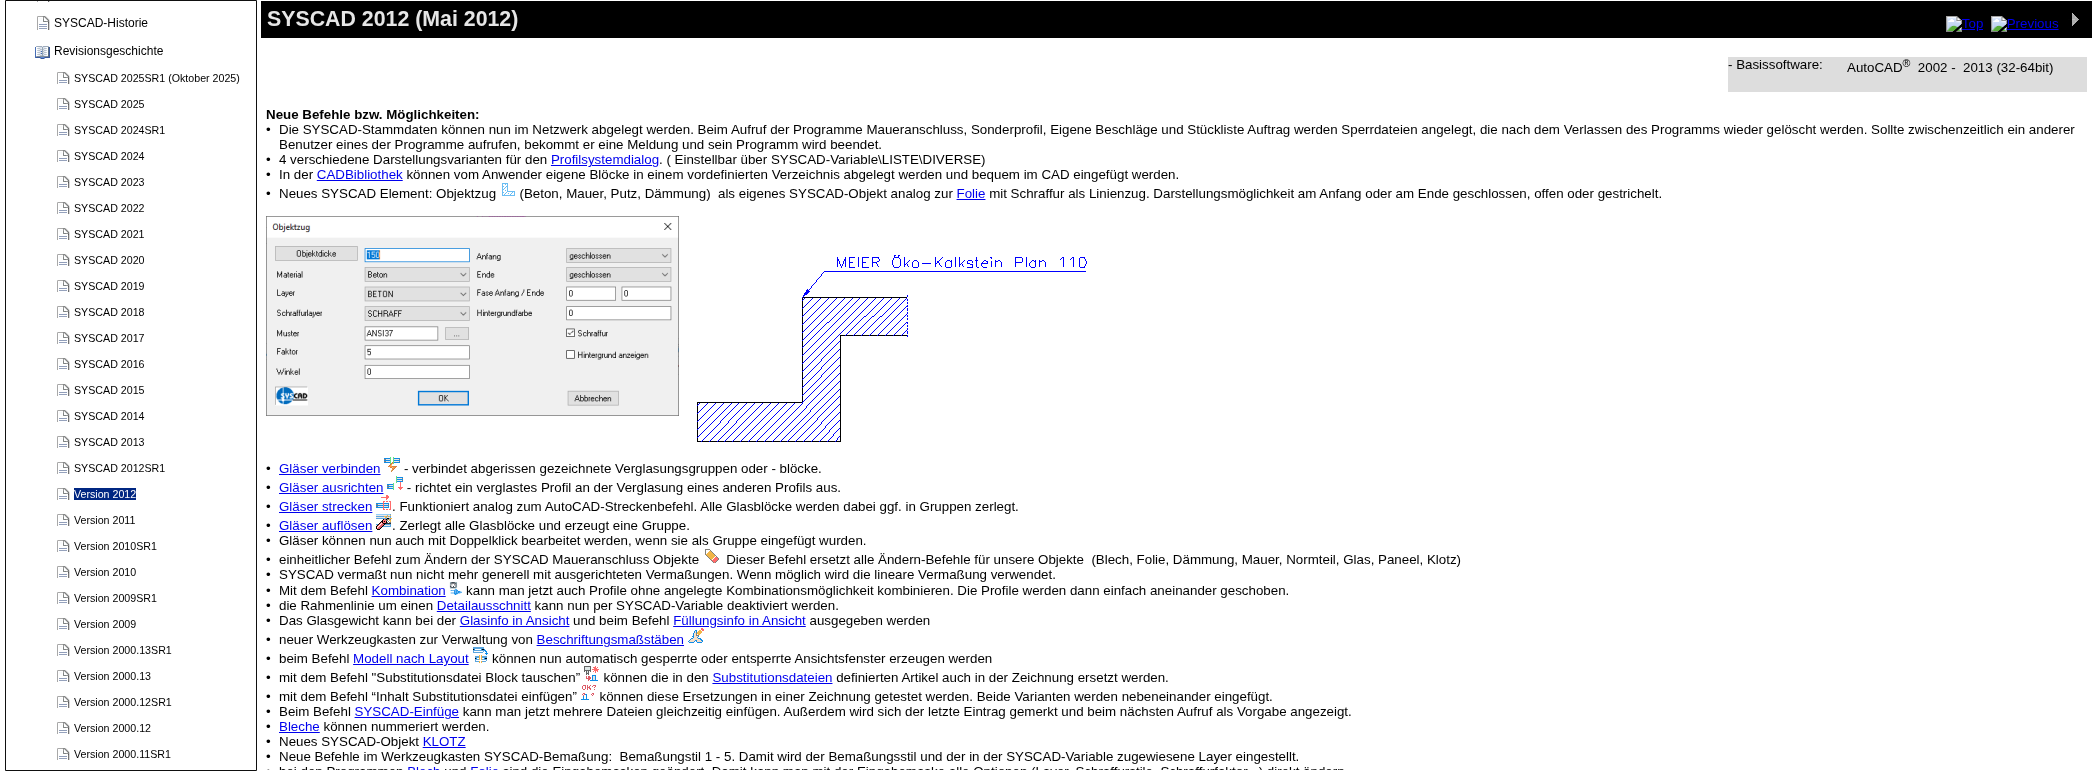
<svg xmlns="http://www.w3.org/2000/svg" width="2098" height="776">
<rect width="100%" height="100%" fill="#fff"/>
<path fill="none" stroke="#0f0f0f" d="M5.5 0.5h251v770H5.5z"/>
<image href="1.png" x="35" y="1" width="205" height="759"/>
<image href="2.png" x="261" y="1" width="1831" height="769"/>
</svg>
